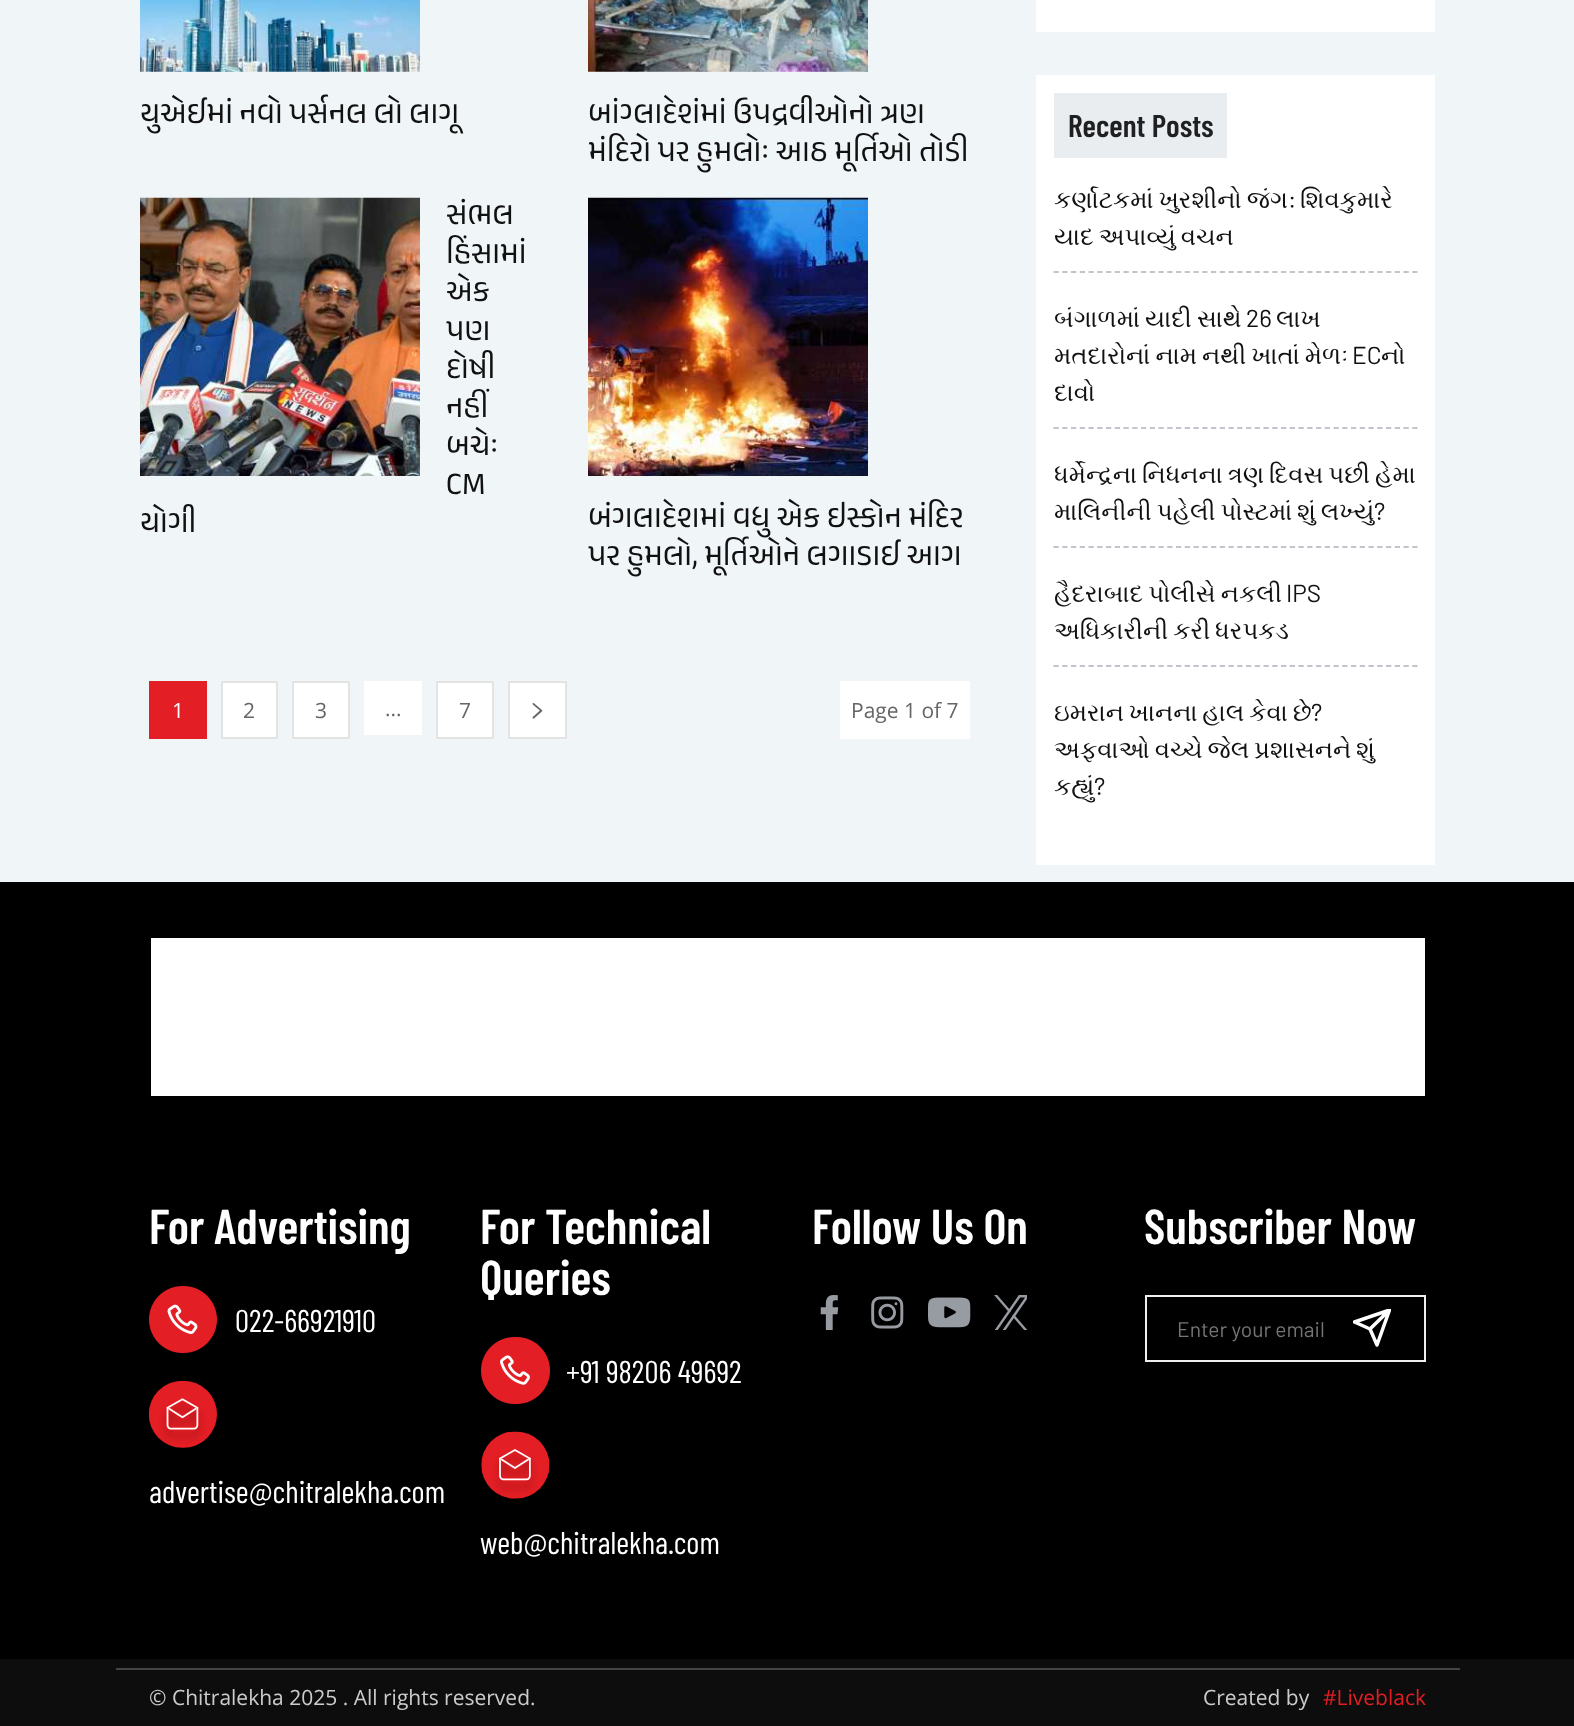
<svg xmlns="http://www.w3.org/2000/svg" width="1574" height="1726">
<style>
.a{font:31.5px Anek Gujarati;fill:#111}
.b{font:21px Open Sans;fill:#fff}
.c{font:21px Open Sans;fill:#666}
.d{font:600 31.5px Barlow Condensed;fill:#1e2022}
.e{font:24.5px FreeSerif;fill:#111}
.f{font:24.5px Barlow;fill:#111}
.g{font:600 49px Barlow Condensed;fill:#fff}
.h{font:31.5px Barlow Condensed;fill:#fff}
.i{font:21px Barlow;fill:#757575}
.j{font:21px Open Sans;fill:#ccc}
.k{font:21px Open Sans;fill:#e21e23}
</style>
<defs>
<clipPath id="clip1"><path d="M1353 1309h38v39H1353z"/></clipPath>
</defs>
<rect width="100%" height="100%" fill="#f0f5f8"/>
<image href="1.png" x="140" y="0" width="280" height="72"/>
<image href="2.png" x="588" y="0" width="280" height="72"/>
<image href="3.png" x="140" y="197" width="280" height="279"/>
<image href="4.png" x="588" y="197" width="280" height="279"/>
<path fill="#e31e24" d="M149 681h58v58H149z"/>
<path fill="#fff" stroke="#e3e3e3" stroke-width="2" d="M222 682h55v56H222z"/>
<path fill="#fff" stroke="#e3e3e3" stroke-width="2" d="M293 682h56v56H293z"/>
<path fill="#fff" d="M364 681h58v54H364z"/>
<path fill="#fff" stroke="#e3e3e3" stroke-width="2" d="M437 682h56v56H437z"/>
<path fill="#fff" stroke="#e3e3e3" stroke-width="2" d="M509 682h57v56H509z"/>
<image href="5.png" x="532" y="703" width="11" height="16"/>
<path fill="#fff" d="M840 681h130v58H840z"/>
<path fill="#fff" d="M1036 0h399v32H1036z"/>
<path fill="#fff" d="M1036 75h399v790H1036z"/>
<path fill="#eaedef" d="M1054 93h173v65H1054z"/>
<path fill="none" stroke="#c1c5cb" stroke-width="1.8" stroke-dasharray="5.25 3.5" d="M1053.5 272h364"/>
<path fill="none" stroke="#c1c5cb" stroke-width="1.8" stroke-dasharray="5.25 3.5" d="M1053.5 428h364"/>
<path fill="none" stroke="#c1c5cb" stroke-width="1.8" stroke-dasharray="5.25 3.5" d="M1053.5 547h364"/>
<path fill="none" stroke="#c1c5cb" stroke-width="1.8" stroke-dasharray="5.25 3.5" d="M1053.5 666h364"/>
<path fill="#000" d="M0 882h1574v777H0z"/>
<path fill="#fff" d="M151 938h1274v158H151z"/>
<image href="6.png" x="149" y="1286" width="68" height="67"/>
<image href="7.png" x="148" y="1380" width="69" height="68"/>
<image href="8.png" x="481" y="1337" width="69" height="67"/>
<image href="9.png" x="481" y="1431" width="69" height="68"/>
<image href="10.png" x="820" y="1295" width="19" height="35"/>
<image href="11.png" x="871" y="1296" width="33" height="33"/>
<image href="12.png" x="928" y="1297" width="43" height="31"/>
<image href="13.png" x="994" y="1295" width="33" height="35"/>
<path fill="none" stroke="#efefef" stroke-width="2" d="M1146 1296h279v65H1146z"/>
<g clip-path="url(#clip1)">
<path fill="none" stroke="#fff" stroke-width="3.5" stroke-linecap="round" stroke-linejoin="round" d="M1389.5 1310l-19.5 19m19.5-19l-12.5 35l-7-16l-15.5-7z"/>
</g>
<path fill="#0d0d0d" d="M0 1659h1574v67H0z"/>
<path fill="#454545" d="M116 1668h1344v2H116z"/>
<text class="a" x="140" y="123">યુએઈમાં નવો પર્સનલ લો લાગૂ</text>
<text class="a" x="588" y="123">બાંગ્લાદેશંમાં ઉપદ્રવીઓનો ત્રણ</text>
<text class="a" x="588" y="161">મંદિરો પર હુમલોઃ આઠ મૂર્તિઓ તોડી</text>
<text class="a" x="446" y="224">સંભલ</text>
<text class="a" x="446" y="263">હિંસામાં</text>
<text class="a" x="446" y="301">એક</text>
<text class="a" x="446" y="340">પણ</text>
<text class="a" x="446" y="378">દોષી</text>
<text class="a" x="446" y="417">નહીં</text>
<text class="a" x="446" y="455">બચેઃ</text>
<text class="a" x="446" y="494">CM</text>
<text class="a" x="140" y="532">યોગી</text>
<text class="a" x="588" y="527">બંગલાદેશમાં વધુ એક ઇસ્કોન મંદિર</text>
<text class="a" x="588" y="565">પર હુમલો, મૂર્તિઓને લગાડાઈ આગ</text>
<text class="b" x="172" y="718">1</text>
<text class="c" x="243" y="718">2</text>
<text class="c" x="315" y="718">3</text>
<text class="c" x="385" y="716">...</text>
<text class="c" x="459" y="718">7</text>
<text class="c" x="851" y="718">Page 1 of 7</text>
<text class="d" x="1068" y="137">Recent Posts</text>
<text class="e" x="1054" y="208" word-spacing="-1">કર્ણાટકમાં ખુરશીનો જંગ</text>
<text class="f" x="1288" y="208">:</text>
<text class="e" x="1300" y="208">શિવકુમારે</text>
<text class="e" x="1054" y="245" word-spacing="-1.25">યાદ અપાવ્યું વચન</text>
<text class="e" x="1054" y="327" word-spacing="-1">બંગાળમાં યાદી સાથે</text>
<text class="f" x="1246" y="327">26</text>
<text class="e" x="1276" y="327">લાખ</text>
<text class="e" x="1054" y="364" word-spacing="-1">મતદારોનાં નામ નથી ખાતાં મેળઃ</text>
<text class="f" x="1352" y="364">EC</text>
<text class="e" x="1381" y="364">નો</text>
<text class="e" x="1054" y="401">દાવો</text>
<text class="e" x="1054" y="483" word-spacing="-1.25">ધર્મેન્દ્રના નિધનના ત્રણ દિવસ પછી હેમા</text>
<text class="e" x="1054" y="520" word-spacing="-1.25">માલિનીની પહેલી પોસ્ટમાં શું લખ્યું</text>
<text class="f" x="1374" y="520">?</text>
<text class="e" x="1054" y="602" word-spacing="-1">હૈદરાબાદ પોલીસે નકલી</text>
<text class="f" x="1286" y="602">IPS</text>
<text class="e" x="1054" y="639" word-spacing="-1.25">અધિકારીની કરી ધરપકડ</text>
<text class="e" x="1054" y="721" word-spacing="-1.25">ઇમરાન ખાનના હાલ કેવા છે</text>
<text class="f" x="1311" y="721">?</text>
<text class="e" x="1054" y="758" word-spacing="-1.25">અફવાઓ વચ્ચે જેલ પ્રશાસનને શું</text>
<text class="e" x="1054" y="795">કહ્યું</text>
<text class="f" x="1094" y="795">?</text>
<text class="g" x="149" y="1244">For Advertising</text>
<text class="h" x="235" y="1332">022-66921910</text>
<text class="h" x="149" y="1503">advertise@chitralekha.com</text>
<text class="g" x="480" y="1244">For Technical</text>
<text class="g" x="480" y="1295">Queries</text>
<text class="h" x="566" y="1383">+91 98206 49692</text>
<text class="h" x="480" y="1554">web@chitralekha.com</text>
<text class="g" x="812" y="1244">Follow Us On</text>
<text class="g" x="1144" y="1244">Subscriber Now</text>
<text class="i" x="1177" y="1337">Enter your email</text>
<text class="j" x="149" y="1705">© Chitralekha 2025 . All rights reserved.</text>
<text class="j" x="1203" y="1705">Created by</text>
<text class="k" x="1323" y="1705">#Liveblack</text>
</svg>
